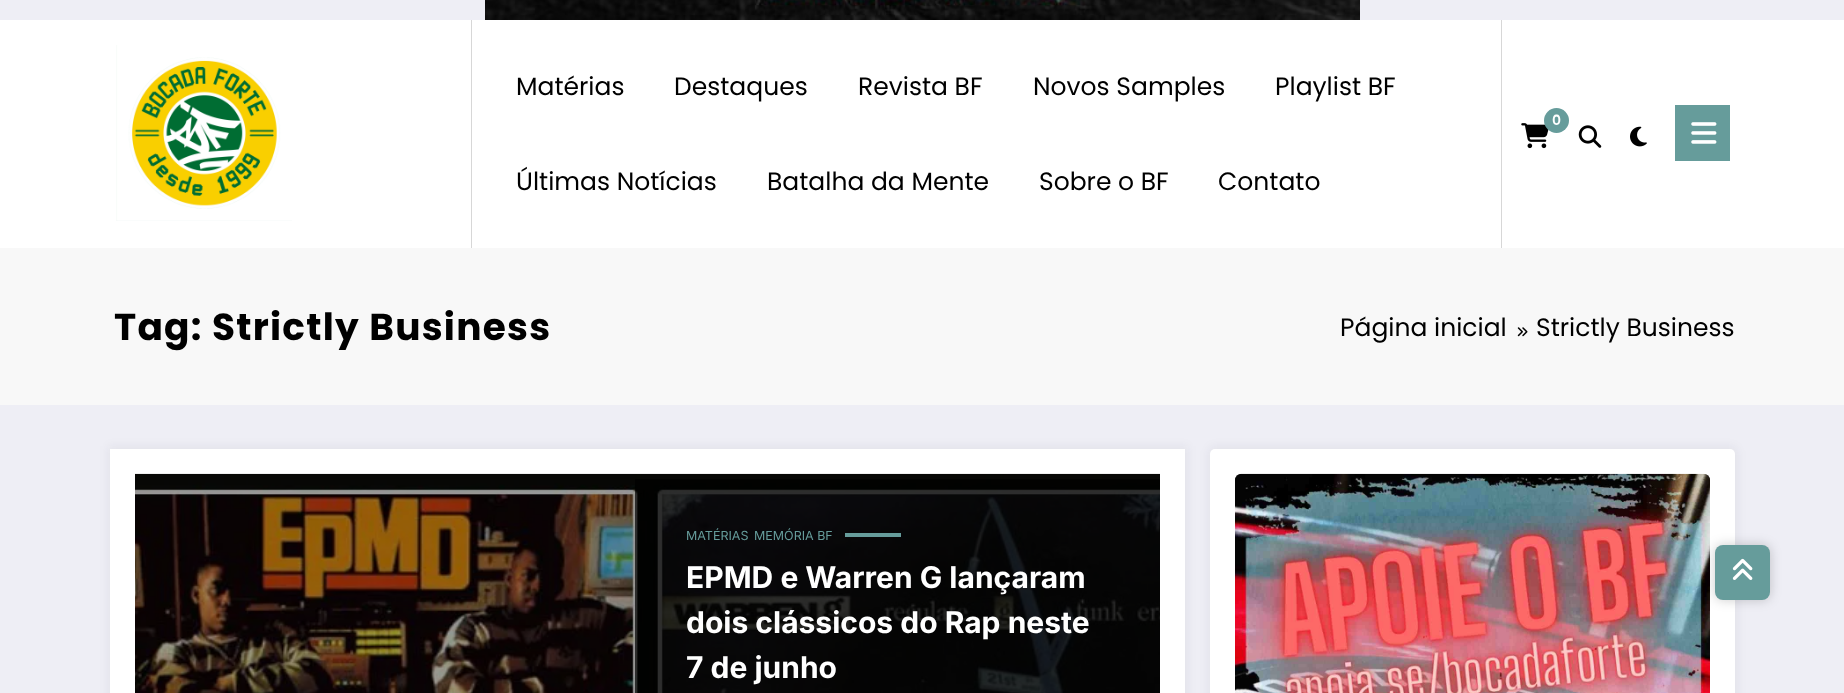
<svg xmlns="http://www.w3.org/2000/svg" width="1844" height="693">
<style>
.a{font:25px Poppins;fill:#000}
.b{font:600 14px Poppins;fill:#fff}
.c{font:bold 37.5px Poppins;letter-spacing:1.25px;fill:#000}
.d{font:12.5px Inter;fill:#669c9b}
.e{font:bold 30px Inter;fill:#fff}
</style>
<rect width="100%" height="100%" fill="#eeeef5"/>
<image href="1.png" x="485" y="0" width="875" height="20"/>
<path fill="#fff" d="M0 20h1844v228H0z"/>
<image href="2.png" x="116" y="45" width="176" height="176"/>
<path fill="#d7d7d7" d="M1501 20h1v228H1501z"/>
<path fill="#d7d7d7" d="M471 20h1v228H471z"/>
<image href="3.png" x="1521" y="123" width="28" height="26"/>
<circle fill="#669c9b" cx="1556.5" cy="120.5" r="12.5"/>
<path fill="#669c9b" d="M1675 105h55v56H1675z"/>
<image href="4.png" x="1691" y="122" width="26" height="22"/>
<image href="5.png" x="1578" y="125" width="24" height="23"/>
<image href="6.png" x="1630" y="126" width="17" height="21"/>
<path fill="#f8f8f8" d="M0 248h1844v157H0z"/>
<image href="7.png" x="1517" y="327" width="11" height="10"/>
<path fill="#1717230d" filter="blur(5px)" d="M108 446h1080v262H108z"/>
<path fill="#fff" d="M110 449h1075v244H110z"/>
<image href="8.png" x="135" y="473" width="1025" height="220"/>
<path fill="#000000b3" d="M635 479h525v214H635z"/>
<path fill="#669c9b" d="M845 533h56v4H845z"/>
<rect fill="#1717230d" filter="blur(5px)" x="1208" y="446" width="530" height="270" rx="8"/>
<rect fill="#fff" x="1210" y="449" width="525" height="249" rx="5"/>
<image href="9.png" x="1235" y="473" width="475" height="220"/>
<rect fill="#00000033" filter="blur(6px)" x="1715" y="545" width="55" height="55" rx="8"/>
<rect fill="#669c9b" x="1715" y="545" width="55" height="55" rx="8"/>
<image href="10.png" x="1732" y="558" width="21" height="22"/>
<text class="a" x="516" y="95">Matérias</text>
<text class="a" x="674" y="95">Destaques</text>
<text class="a" x="858" y="95">Revista BF</text>
<text class="a" x="1033" y="95">Novos Samples</text>
<text class="a" x="1275" y="95">Playlist BF</text>
<text class="a" x="516" y="190">Últimas Notícias</text>
<text class="a" x="767" y="190">Batalha da Mente</text>
<text class="a" x="1039" y="190">Sobre o BF</text>
<text class="a" x="1218" y="190">Contato</text>
<text class="b" x="1552" y="125">0</text>
<text class="c" x="114" y="340">Tag: Strictly Business</text>
<text class="a" x="1340" y="336">Página inicial</text>
<text class="a" x="1536" y="336">Strictly Business</text>
<text class="d" x="686" y="540">MATÉRIAS</text>
<text class="d" x="754" y="540">MEMÓRIA BF</text>
<text class="e" x="686" y="588">EPMD e Warren G lançaram</text>
<text class="e" x="686" y="633">dois clássicos do Rap neste</text>
<text class="e" x="686" y="678">7 de junho</text>
</svg>
